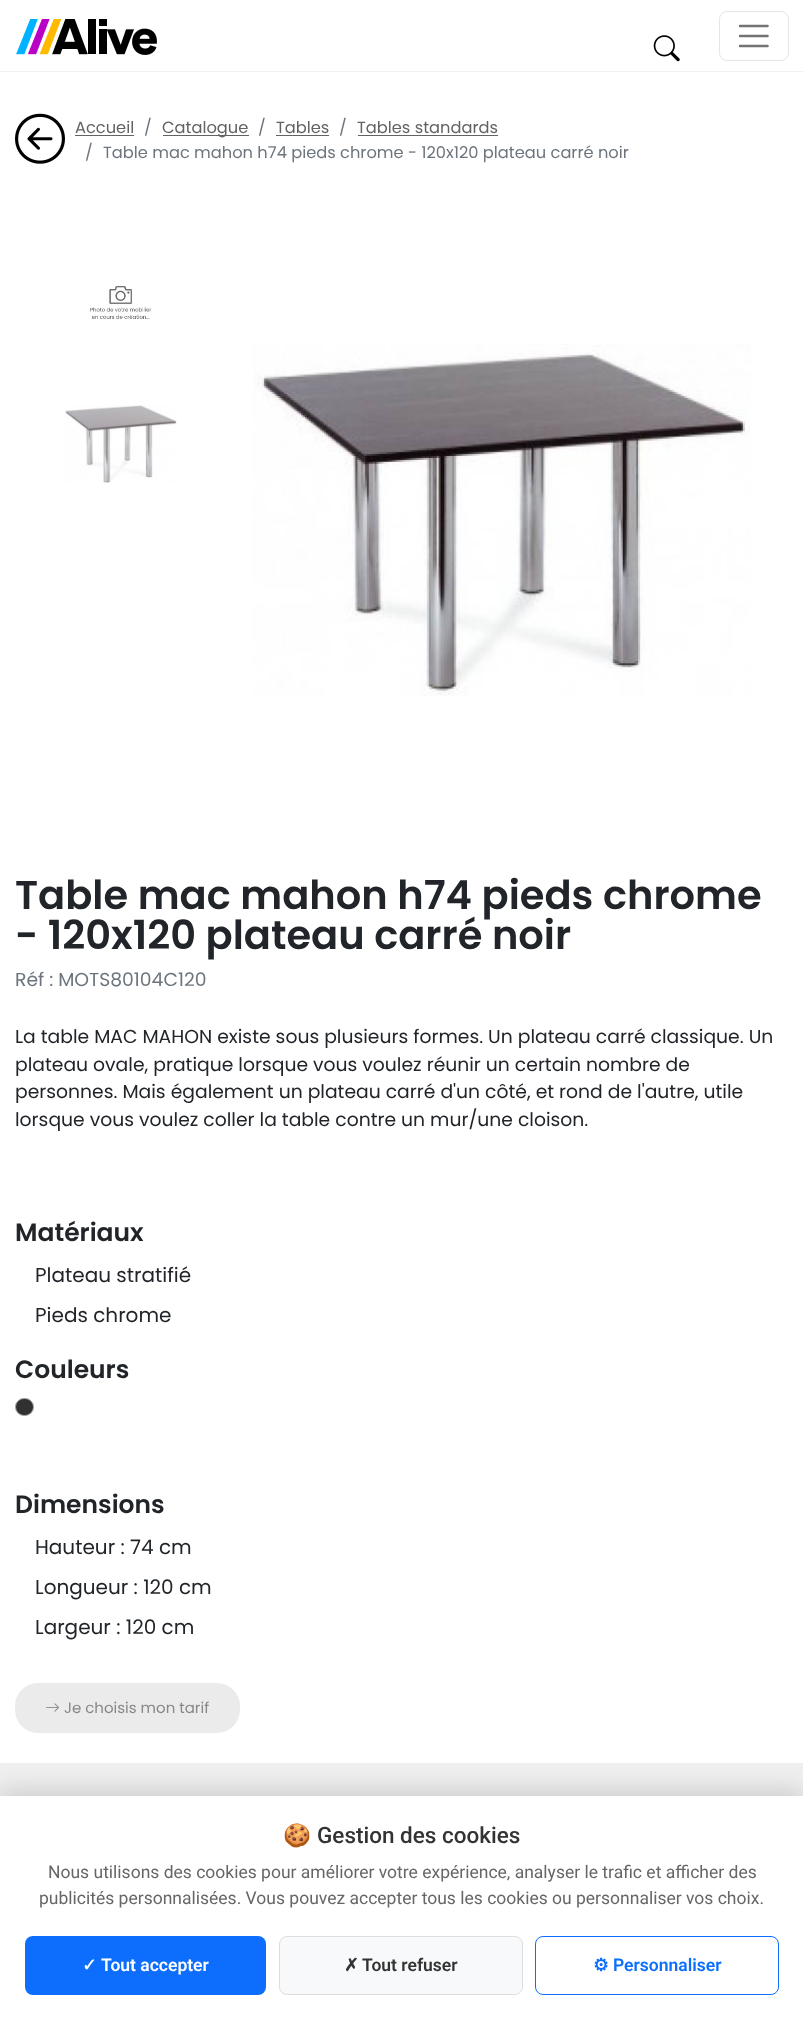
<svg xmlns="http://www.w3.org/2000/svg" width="803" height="2019">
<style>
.a{font:16.25px Poppins;fill:#626360}
.b{font:16.25px Poppins;fill:#6c757d}
.c{font:600 40px Poppins;fill:#212529}
.d{font:18.75px Poppins;fill:#6c757d}
.e{font:18.75px Poppins;fill:#212529}
.f{font:600 25px Poppins;fill:#212529}
.g{font:20px Poppins;fill:#212529}
.h{font:15px Poppins;fill:#888}
.i{font:22.5px Noto Color Emoji;fill:#333}
.j{font:500 22.5px Roboto;fill:#333}
.k{font:17.5px Roboto;fill:#666}
.l{font:bold 17.5px DejaVu Sans;fill:#fff}
.m{font:600 17.5px Roboto;fill:#fff}
.n{font:bold 17.5px DejaVu Sans;fill:#333}
.o{font:600 17.5px Roboto;fill:#333}
.p{font:bold 17.5px DejaVu Sans;fill:#0d6efd}
.q{font:600 17.5px Roboto;fill:#0d6efd}
</style>
<rect width="100%" height="100%" fill="#fff"/>
<path fill="#f1f1f1" d="M0 71h803v1H0z"/>
<image href="1.png" x="16" y="19" width="141" height="36"/>
<rect fill="none" stroke="#e6e6e6" x="719.5" y="11.5" width="69" height="49" rx="7.5"/>
<path fill="none" stroke="#737373" stroke-width="2.5" stroke-linecap="round" d="M740 26h27.5m-27.5 10h27.5m-27.5 10h27.5"/>
<image href="2.png" x="653" y="35" width="27" height="27"/>
<image href="3.png" x="15" y="113" width="50" height="51"/>
<path fill="#626360" d="M75 135h59v1H75z"/>
<path fill="#626360" d="M163 135h86v1H163z"/>
<path fill="#626360" d="M276 135h53v1H276z"/>
<path fill="#626360" d="M358 135h140v1H358z"/>
<image href="4.png" x="90" y="286" width="62" height="34"/>
<image href="5.png" x="65" y="405" width="112" height="79"/>
<image href="6.png" x="253" y="344" width="498" height="352"/>
<rect fill="#313132" stroke="#a1a4a3" x="15.5" y="1398.5" width="18" height="17" rx="8.5"/>
<rect fill="#ebebeb" x="15" y="1683" width="225" height="50" rx="23"/>
<image href="7.png" x="46" y="1703" width="13" height="9"/>
<path fill="#efefef" d="M0 1763h803v33H0z"/>
<path fill="#00000026" filter="blur(12.5px)" d="M0 1791h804v224H0z"/>
<path fill="#fff" d="M0 1796h803v223H0z"/>
<rect fill="#0d6efd" x="25" y="1936" width="241" height="59" rx="8"/>
<rect fill="#f8f9fa" stroke="#ddd" x="279.5" y="1936.5" width="243" height="58" rx="7.5"/>
<rect fill="none" stroke="#0d6efd" x="535.5" y="1936.5" width="243" height="58" rx="7.5"/>
<text class="a" x="75" y="133">Accueil</text>
<text class="b" x="144" y="133">/</text>
<text class="a" x="162" y="133">Catalogue</text>
<text class="b" x="258" y="133">/</text>
<text class="a" x="276" y="133">Tables</text>
<text class="b" x="339" y="133">/</text>
<text class="a" x="357" y="133">Tables standards</text>
<text class="b" x="85" y="158">/</text>
<text class="b" x="103" y="158">Table mac mahon h74 pieds chrome - 120x120 plateau carré noir</text>
<text class="c" x="15" y="909">Table mac mahon h74 pieds chrome</text>
<text class="c" x="15" y="949">- 120x120 plateau carré noir</text>
<text class="d" x="15" y="986">Réf : MOTS80104C120</text>
<text class="e" x="15" y="1043">La table MAC MAHON existe sous plusieurs formes. Un plateau carré classique. Un</text>
<text class="e" x="15" y="1071">plateau ovale, pratique lorsque vous voulez réunir un certain nombre de</text>
<text class="e" x="15" y="1098">personnes. Mais également un plateau carré d'un côté, et rond de l'autre, utile</text>
<text class="e" x="15" y="1126">lorsque vous voulez coller la table contre un mur/une cloison.</text>
<text class="f" x="15" y="1241">Matériaux</text>
<text class="g" x="35" y="1282">Plateau stratifié</text>
<text class="g" x="35" y="1322">Pieds chrome</text>
<text class="f" x="15" y="1378">Couleurs</text>
<text class="f" x="15" y="1513">Dimensions</text>
<text class="g" x="35" y="1554">Hauteur : 74 cm</text>
<text class="g" x="35" y="1594">Longueur : 120 cm</text>
<text class="g" x="35" y="1634">Largeur : 120 cm</text>
<text class="h" x="64" y="1713">Je choisis mon tarif</text>
<text class="i" x="283" y="1843">🍪</text>
<text class="j" x="317" y="1843">Gestion des cookies</text>
<text class="k" x="48" y="1878">Nous utilisons des cookies pour améliorer votre expérience, analyser le trafic et afficher des</text>
<text class="k" x="39" y="1904">publicités personnalisées. Vous pouvez accepter tous les cookies ou personnaliser vos choix.</text>
<text class="l" x="82" y="1971">✓</text>
<text class="m" x="101" y="1971">Tout accepter</text>
<text class="n" x="344" y="1971">✗</text>
<text class="o" x="362" y="1971">Tout refuser</text>
<text class="p" x="593" y="1971">⚙</text>
<text class="q" x="613" y="1971">Personnaliser</text>
</svg>
